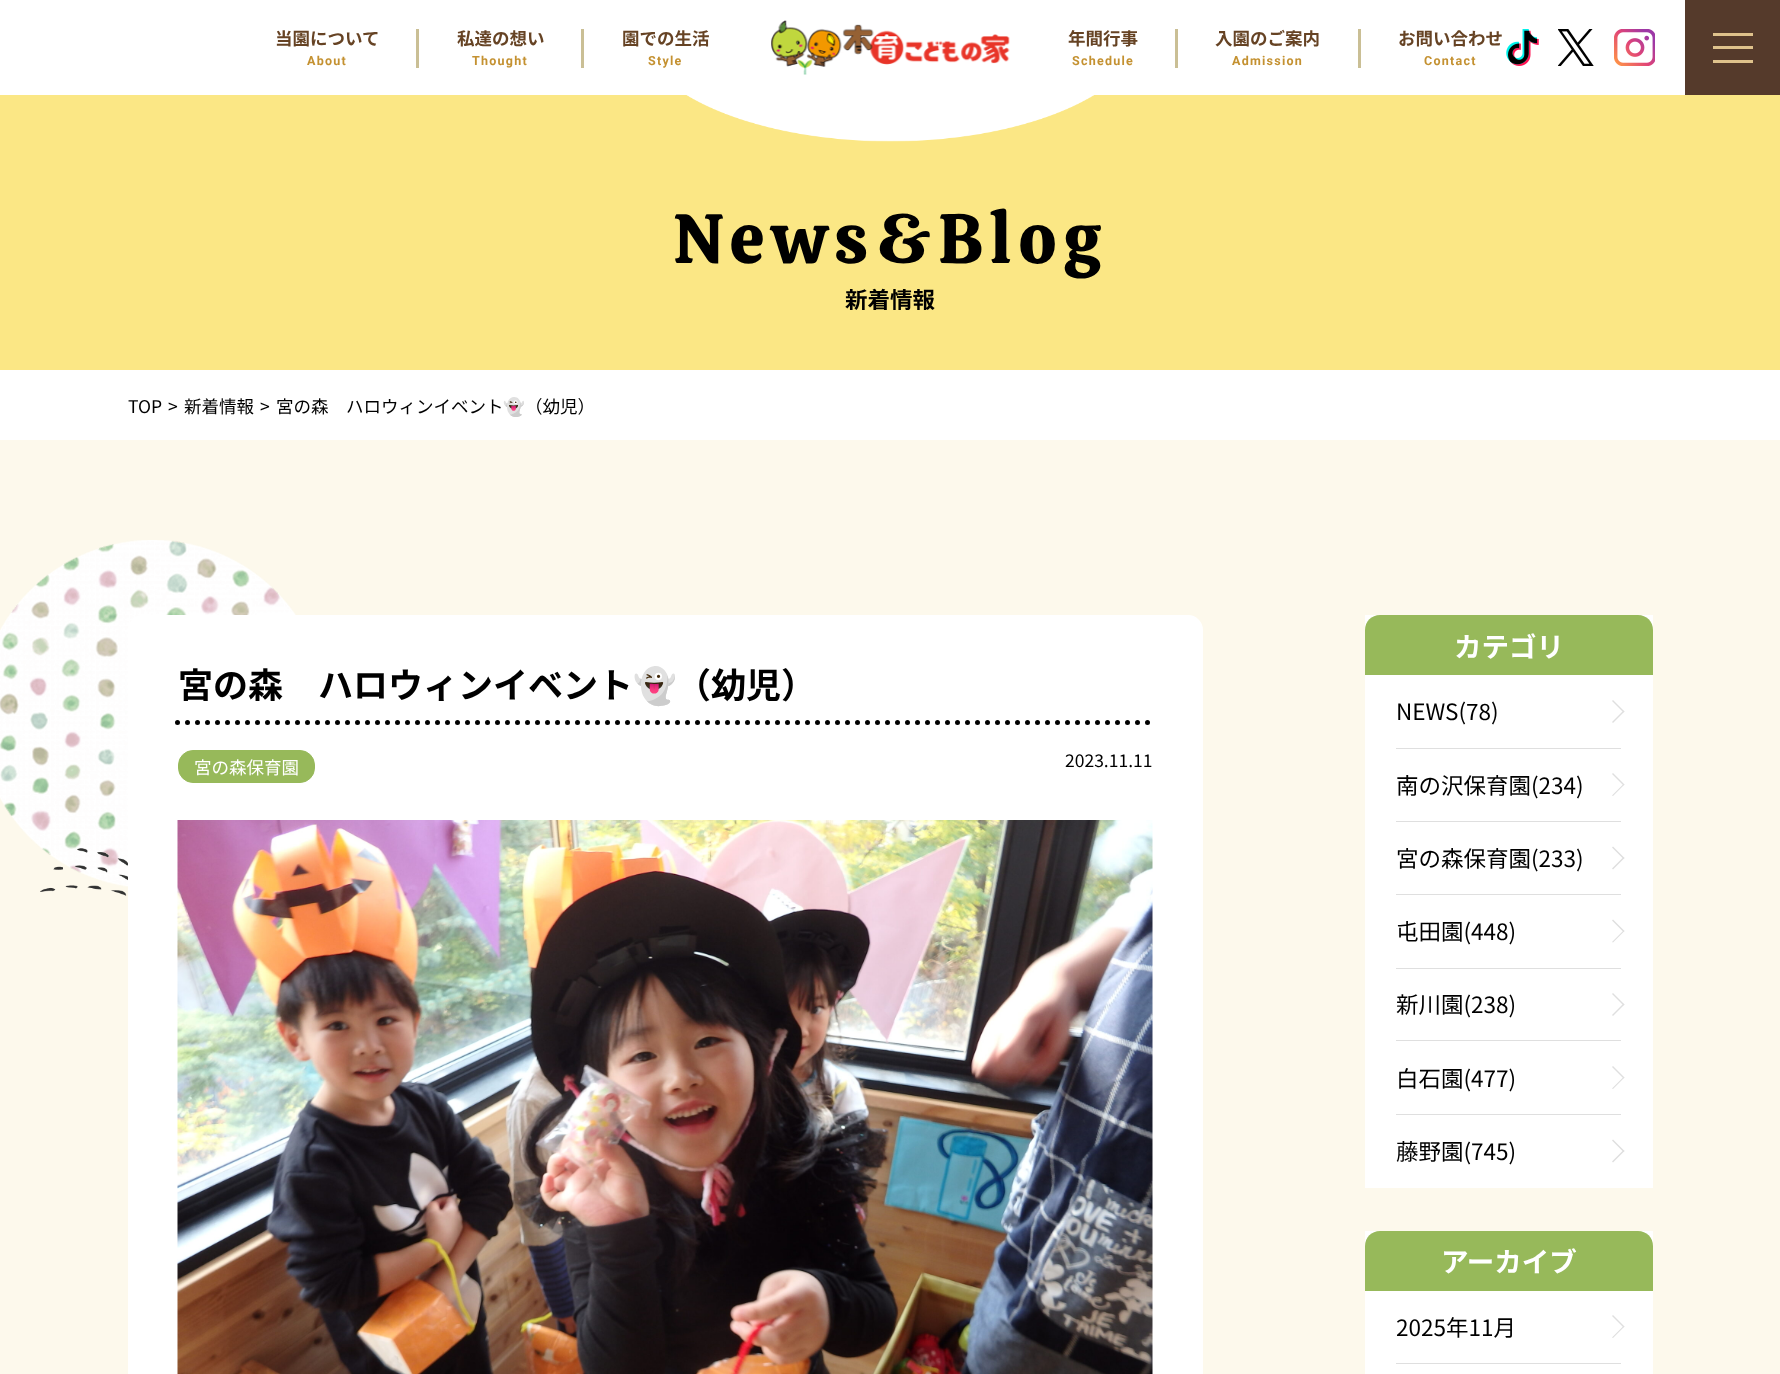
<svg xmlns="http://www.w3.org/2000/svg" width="1780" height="1374">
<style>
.a{font:bold 17.5px Noto Sans JP;fill:#664324}
.b{font:bold 12.5px Roboto;letter-spacing:1.25px;fill:#c49131}
.c{font:70px Calistoga;letter-spacing:7px;fill:#000}
.d{font:bold 22.5px Noto Sans JP;fill:#000}
.e{font:17.5px Noto Sans JP;fill:#000}
.f{font:17.5px Noto Color Emoji;fill:#000}
.g{font:bold 35px Noto Sans JP;fill:#000}
.h{font:bold 35px Noto Color Emoji;fill:#000}
.i{font:17.5px Noto Sans JP;fill:#fff}
.j{font:bold 27.5px Noto Sans JP;fill:#fff}
.k{font:22.5px Noto Sans JP;fill:#000}
</style>
<rect width="100%" height="100%" fill="#fff"/>
<image href="1.png" x="771" y="20" width="239" height="55"/>
<path fill="#cabf95" d="M416 29h3v39H416z"/>
<path fill="#cabf95" d="M581 29h3v39H581z"/>
<path fill="#cabf95" d="M1175 29h3v39H1175z"/>
<path fill="#cabf95" d="M1358 29h3v39H1358z"/>
<image href="2.png" x="1506" y="29" width="33" height="37"/>
<image href="3.png" x="1558" y="29" width="36" height="37"/>
<image href="4.png" x="1614" y="29" width="41" height="37"/>
<path fill="#553a2b" d="M1685 0h95v95H1685z"/>
<path fill="#dfc28c" d="M1713 33h40v3H1713z"/>
<path fill="#dfc28c" d="M1713 46h40v3H1713z"/>
<path fill="#dfc28c" d="M1713 60h40v3H1713z"/>
<path fill="#fbe785" d="M0 95h1780v275H0z"/>
<image href="5.png" x="686" y="95" width="409" height="47"/>
<path fill="#fdf9ec" d="M0 440h1780v934H0z"/>
<image href="6.png" x="0" y="540" width="297" height="356"/>
<rect fill="#fff" x="128" y="615" width="1075" height="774" rx="15"/>
<path fill="none" stroke="#000" stroke-width="5" stroke-linecap="round" stroke-dasharray="0 10" d="M177.5 722.5h975"/>
<rect fill="#97b95a" stroke="#97b95a" x="178.5" y="750.5" width="136" height="32" rx="14.5"/>
<image href="7.png" x="177" y="820" width="976" height="554"/>
<path fill="#fff" d="M1365 615h288v573H1365z"/>
<path fill="#97b95a" d="M1380 615h258c8.5 0 15 6.5 15 15v45h-288v-45c0-8.5 6.5-15 15-15z"/>
<path fill="#dfdfdf" d="M1396 748h225v1H1396z"/>
<path fill="#dfdfdf" d="M1613 700l11.5 11.5l-1 1l-11.5-11.5z"/>
<path fill="#dfdfdf" d="M1623.5 710.5l1 1l-11.5 11.5l-1-1z"/>
<path fill="#dfdfdf" d="M1396 821h225v1H1396z"/>
<path fill="#dfdfdf" d="M1613 773l11.5 11.5l-1 1l-11.5-11.5z"/>
<path fill="#dfdfdf" d="M1623.5 784l1 .5l-11.5 11.5l-1-.5z"/>
<path fill="#dfdfdf" d="M1396 894h225v1H1396z"/>
<path fill="#dfdfdf" d="M1613 846.5l11.5 11.5l-1 1l-11.5-11.5z"/>
<path fill="#dfdfdf" d="M1623.5 857l1 1l-11.5 11.5l-1-1z"/>
<path fill="#dfdfdf" d="M1396 968h225v1H1396z"/>
<path fill="#dfdfdf" d="M1613 919.5l11.5 11.5l-1 1l-11.5-11.5z"/>
<path fill="#dfdfdf" d="M1623.5 930.5l1 .5l-11.5 11.5l-1-.5z"/>
<path fill="#dfdfdf" d="M1396 1040h225v1H1396z"/>
<path fill="#dfdfdf" d="M1613 993l11.5 11.5l-1 1l-11.5-11.5z"/>
<path fill="#dfdfdf" d="M1623.5 1003.5l1 1l-11.5 11.5l-1-1z"/>
<path fill="#dfdfdf" d="M1396 1114h225v1H1396z"/>
<path fill="#dfdfdf" d="M1613 1066l11.5 11.5l-1 1l-11.5-11.5z"/>
<path fill="#dfdfdf" d="M1623.5 1077l1 .5l-11.5 11.5l-1-.5z"/>
<path fill="#dfdfdf" d="M1613 1139.5l11.5 11.5l-1 1l-11.5-11.5z"/>
<path fill="#dfdfdf" d="M1623.5 1150l1 1l-11.5 11.5l-1-1z"/>
<path fill="#fff" d="M1365 1231h288v143H1365z"/>
<path fill="#97b95a" d="M1380 1231h258c8.5 0 15 6.5 15 15v45h-288v-45c0-8.5 6.5-15 15-15z"/>
<path fill="#dfdfdf" d="M1396 1363h225v1H1396z"/>
<path fill="#dfdfdf" d="M1613 1315l11.5 11.5l-1 1l-11.5-11.5z"/>
<path fill="#dfdfdf" d="M1623.5 1326l1 .5l-11.5 11.5l-1-.5z"/>
<text class="a" x="275" y="45">当園について</text>
<text class="b" x="307" y="65">About</text>
<text class="a" x="457" y="45">私達の想い</text>
<text class="b" x="472" y="65">Thought</text>
<text class="a" x="622" y="45">園での生活</text>
<text class="b" x="648" y="65">Style</text>
<text class="a" x="1068" y="45">年間行事</text>
<text class="b" x="1072" y="65">Schedule</text>
<text class="a" x="1215" y="45">入園のご案内</text>
<text class="b" x="1232" y="65">Admission</text>
<text class="a" x="1398" y="45">お問い合わせ</text>
<text class="b" x="1424" y="65">Contact</text>
<text class="c" x="673" y="263">News&amp;Blog</text>
<text class="d" x="845" y="308">新着情報</text>
<text class="e" x="128" y="413">TOP</text>
<text class="e" x="168" y="413">&gt;</text>
<text class="e" x="184" y="413">新着情報</text>
<text class="e" x="260" y="413">&gt;</text>
<text class="e" x="276" y="413">宮の森　ハロウィンイベント</text>
<text class="f" x="503" y="413">👻</text>
<text class="e" x="525" y="413">（幼児）</text>
<text class="g" x="178" y="698">宮の森　ハロウィンイベント</text>
<text class="h" x="633" y="698">👻</text>
<text class="g" x="676" y="698">（幼児）</text>
<text class="i" x="194" y="774">宮の森保育園</text>
<text class="e" x="1065" y="767">2023.11.11</text>
<text class="j" x="1454" y="657">カテゴリ</text>
<text class="k" x="1396" y="720">NEWS(78)</text>
<text class="k" x="1396" y="794">南の沢保育園(234)</text>
<text class="k" x="1396" y="867">宮の森保育園(233)</text>
<text class="k" x="1396" y="940">屯田園(448)</text>
<text class="k" x="1396" y="1013">新川園(238)</text>
<text class="k" x="1396" y="1087">白石園(477)</text>
<text class="k" x="1396" y="1160">藤野園(745)</text>
<text class="j" x="1441" y="1272">アーカイブ</text>
<text class="k" x="1396" y="1336">2025年11月</text>
</svg>
